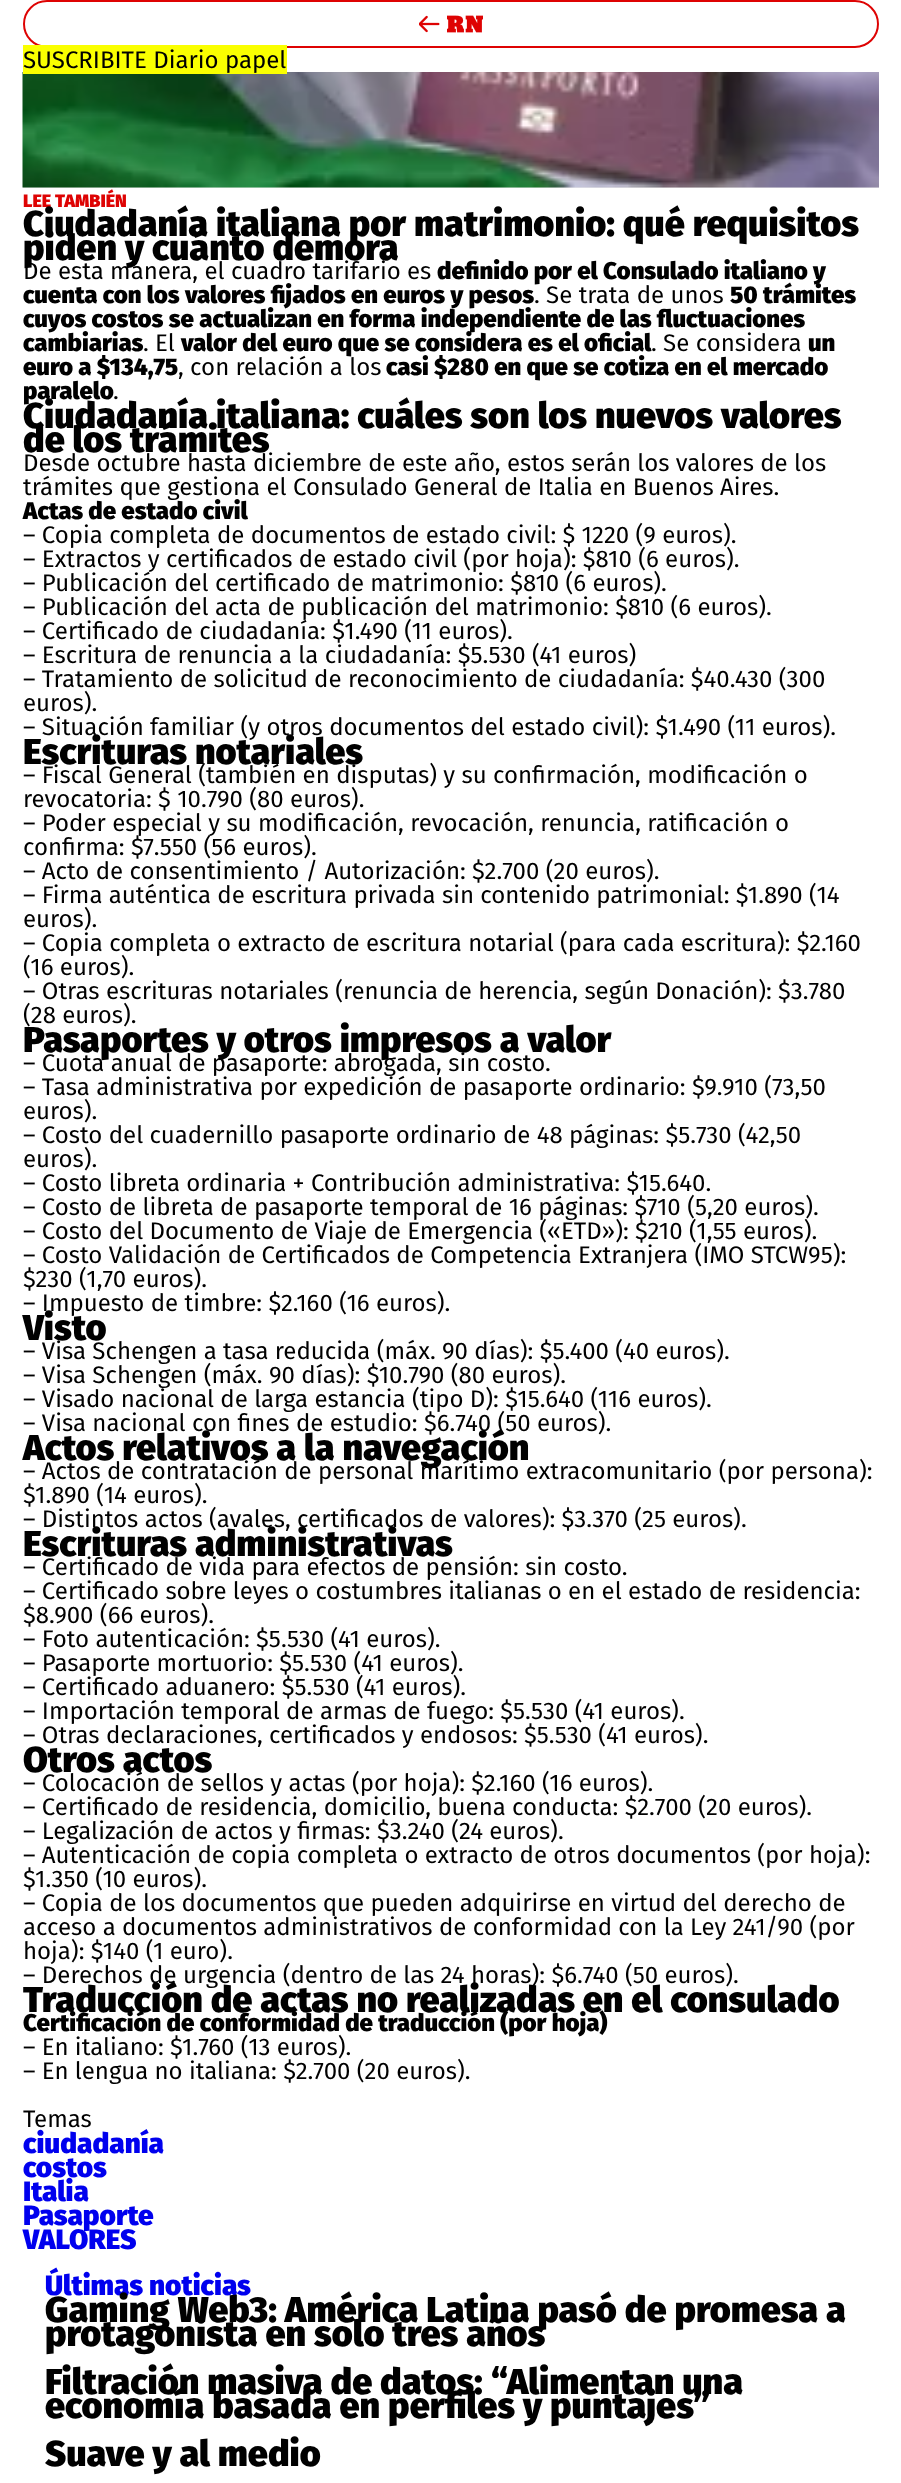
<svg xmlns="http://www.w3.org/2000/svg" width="901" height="2483">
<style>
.a{font:24px Fira Sans;fill:#000}
.b{font:900 18px Fira Sans;fill:#de0303}
.c{font:900 36px Fira Sans;fill:#000}
.d{font:900 24px Fira Sans;fill:#000}
.e{font:900 28px Fira Sans;fill:#00e}
</style>
<rect width="100%" height="100%" fill="#fff"/>
<rect fill="none" stroke="#de0303" stroke-width="2" x="24" y="1" width="854" height="46" rx="23"/>
<image href="1.png" x="419" y="15" width="21" height="18"/>
<image href="2.png" x="447" y="15" width="36" height="18"/>
<path fill="#ededed" d="M23 187h856v1H23z"/>
<image href="3.png" x="22" y="72" width="857" height="116"/>
<path fill="#faff00" d="M23 45h264v29H23z"/>
<text class="a" x="23" y="68">SUSCRIBITE Diario papel</text>
<text class="b" x="23" y="207">LEE TAMBIÉN</text>
<text class="c" x="23" y="236">Ciudadanía italiana por matrimonio: qué requisitos</text>
<text class="c" x="23" y="260">piden y cuánto demora</text>
<text class="a" x="23" y="279">De esta manera, el cuadro tarifario es</text>
<text class="d" x="437" y="279">definido por el Consulado italiano y</text>
<text class="d" x="23" y="303">cuenta con los valores fijados en euros y pesos</text>
<text class="a" x="534" y="303">. Se trata de unos</text>
<text class="d" x="730" y="303">50 trámites</text>
<text class="d" x="23" y="327">cuyos costos se actualizan en forma independiente de las fluctuaciones</text>
<text class="d" x="23" y="351">cambiarias</text>
<text class="a" x="143" y="351">. El</text>
<text class="d" x="181" y="351">valor del euro que se considera es el oficial</text>
<text class="a" x="651" y="351">. Se considera</text>
<text class="d" x="808" y="351">un</text>
<text class="d" x="23" y="375">euro a $134,75</text>
<text class="a" x="178" y="375">, con relación a los</text>
<text class="d" x="386" y="375">casi $280 en que se cotiza en el mercado</text>
<text class="d" x="23" y="399">paralelo</text>
<text class="a" x="113" y="399">.</text>
<text class="c" x="23" y="428">Ciudadanía italiana: cuáles son los nuevos valores</text>
<text class="c" x="23" y="452">de los trámites</text>
<text class="a" x="23" y="471">Desde octubre hasta diciembre de este año, estos serán los valores de los</text>
<text class="a" x="23" y="495">trámites que gestiona el Consulado General de Italia en Buenos Aires.</text>
<text class="d" x="23" y="519">Actas de estado civil</text>
<text class="a" x="23" y="543">– Copia completa de documentos de estado civil: $ 1220 (9 euros).</text>
<text class="a" x="23" y="567">– Extractos y certificados de estado civil (por hoja): $810 (6 euros).</text>
<text class="a" x="23" y="591">– Publicación del certificado de matrimonio: $810 (6 euros).</text>
<text class="a" x="23" y="615">– Publicación del acta de publicación del matrimonio: $810 (6 euros).</text>
<text class="a" x="23" y="639">– Certificado de ciudadanía: $1.490 (11 euros).</text>
<text class="a" x="23" y="663">– Escritura de renuncia a la ciudadanía: $5.530 (41 euros)</text>
<text class="a" x="23" y="687">– Tratamiento de solicitud de reconocimiento de ciudadanía: $40.430 (300</text>
<text class="a" x="23" y="711">euros).</text>
<text class="a" x="23" y="735">– Situación familiar (y otros documentos del estado civil): $1.490 (11 euros).</text>
<text class="c" x="23" y="764">Escrituras notariales</text>
<text class="a" x="23" y="783">– Fiscal General (también en disputas) y su confirmación, modificación o</text>
<text class="a" x="23" y="807">revocatoria: $ 10.790 (80 euros).</text>
<text class="a" x="23" y="831">– Poder especial y su modificación, revocación, renuncia, ratificación o</text>
<text class="a" x="23" y="855">confirma: $7.550 (56 euros).</text>
<text class="a" x="23" y="879">– Acto de consentimiento / Autorización: $2.700 (20 euros).</text>
<text class="a" x="23" y="903">– Firma auténtica de escritura privada sin contenido patrimonial: $1.890 (14</text>
<text class="a" x="23" y="927">euros).</text>
<text class="a" x="23" y="951">– Copia completa o extracto de escritura notarial (para cada escritura): $2.160</text>
<text class="a" x="23" y="975">(16 euros).</text>
<text class="a" x="23" y="999">– Otras escrituras notariales (renuncia de herencia, según Donación): $3.780</text>
<text class="a" x="23" y="1023">(28 euros).</text>
<text class="c" x="23" y="1052">Pasaportes y otros impresos a valor</text>
<text class="a" x="23" y="1071">– Cuota anual de pasaporte: abrogada, sin costo.</text>
<text class="a" x="23" y="1095">– Tasa administrativa por expedición de pasaporte ordinario: $9.910 (73,50</text>
<text class="a" x="23" y="1119">euros).</text>
<text class="a" x="23" y="1143">– Costo del cuadernillo pasaporte ordinario de 48 páginas: $5.730 (42,50</text>
<text class="a" x="23" y="1167">euros).</text>
<text class="a" x="23" y="1191">– Costo libreta ordinaria + Contribución administrativa: $15.640.</text>
<text class="a" x="23" y="1215">– Costo de libreta de pasaporte temporal de 16 páginas: $710 (5,20 euros).</text>
<text class="a" x="23" y="1239">– Costo del Documento de Viaje de Emergencia («ETD»): $210 (1,55 euros).</text>
<text class="a" x="23" y="1263">– Costo Validación de Certificados de Competencia Extranjera (IMO STCW95):</text>
<text class="a" x="23" y="1287">$230 (1,70 euros).</text>
<text class="a" x="23" y="1311">– Impuesto de timbre: $2.160 (16 euros).</text>
<text class="c" x="23" y="1340">Visto</text>
<text class="a" x="23" y="1359">– Visa Schengen a tasa reducida (máx. 90 días): $5.400 (40 euros).</text>
<text class="a" x="23" y="1383">– Visa Schengen (máx. 90 días): $10.790 (80 euros).</text>
<text class="a" x="23" y="1407">– Visado nacional de larga estancia (tipo D): $15.640 (116 euros).</text>
<text class="a" x="23" y="1431">– Visa nacional con fines de estudio: $6.740 (50 euros).</text>
<text class="c" x="23" y="1460">Actos relativos a la navegación</text>
<text class="a" x="23" y="1479">– Actos de contratación de personal marítimo extracomunitario (por persona):</text>
<text class="a" x="23" y="1503">$1.890 (14 euros).</text>
<text class="a" x="23" y="1527">– Distintos actos (avales, certificados de valores): $3.370 (25 euros).</text>
<text class="c" x="23" y="1556">Escrituras administrativas</text>
<text class="a" x="23" y="1575">– Certificado de vida para efectos de pensión: sin costo.</text>
<text class="a" x="23" y="1599">– Certificado sobre leyes o costumbres italianas o en el estado de residencia:</text>
<text class="a" x="23" y="1623">$8.900 (66 euros).</text>
<text class="a" x="23" y="1647">– Foto autenticación: $5.530 (41 euros).</text>
<text class="a" x="23" y="1671">– Pasaporte mortuorio: $5.530 (41 euros).</text>
<text class="a" x="23" y="1695">– Certificado aduanero: $5.530 (41 euros).</text>
<text class="a" x="23" y="1719">– Importación temporal de armas de fuego: $5.530 (41 euros).</text>
<text class="a" x="23" y="1743">– Otras declaraciones, certificados y endosos: $5.530 (41 euros).</text>
<text class="c" x="23" y="1772">Otros actos</text>
<text class="a" x="23" y="1791">– Colocación de sellos y actas (por hoja): $2.160 (16 euros).</text>
<text class="a" x="23" y="1815">– Certificado de residencia, domicilio, buena conducta: $2.700 (20 euros).</text>
<text class="a" x="23" y="1839">– Legalización de actos y firmas: $3.240 (24 euros).</text>
<text class="a" x="23" y="1863">– Autenticación de copia completa o extracto de otros documentos (por hoja):</text>
<text class="a" x="23" y="1887">$1.350 (10 euros).</text>
<text class="a" x="23" y="1911">– Copia de los documentos que pueden adquirirse en virtud del derecho de</text>
<text class="a" x="23" y="1935">acceso a documentos administrativos de conformidad con la Ley 241/90 (por</text>
<text class="a" x="23" y="1959">hoja): $140 (1 euro).</text>
<text class="a" x="23" y="1983">– Derechos de urgencia (dentro de las 24 horas): $6.740 (50 euros).</text>
<text class="c" x="23" y="2012">Traducción de actas no realizadas en el consulado</text>
<text class="d" x="23" y="2031">Certificación de conformidad de traducción (por hoja)</text>
<text class="a" x="23" y="2055">– En italiano: $1.760 (13 euros).</text>
<text class="a" x="23" y="2079">– En lengua no italiana: $2.700 (20 euros).</text>
<text class="a" x="23" y="2127">Temas</text>
<text class="e" x="23" y="2153">ciudadanía</text>
<text class="e" x="23" y="2177">costos</text>
<text class="e" x="23" y="2201">Italia</text>
<text class="e" x="23" y="2225">Pasaporte</text>
<text class="e" x="23" y="2249">VALORES</text>
<text class="e" x="45" y="2295">Últimas noticias</text>
<text class="c" x="45" y="2322">Gaming Web3: América Latina pasó de promesa a</text>
<text class="c" x="45" y="2346">protagonista en solo tres años</text>
<text class="c" x="45" y="2394">Filtración masiva de datos: “Alimentan una</text>
<text class="c" x="45" y="2418">economía basada en perfiles y puntajes”</text>
<text class="c" x="45" y="2466">Suave y al medio</text>
</svg>
